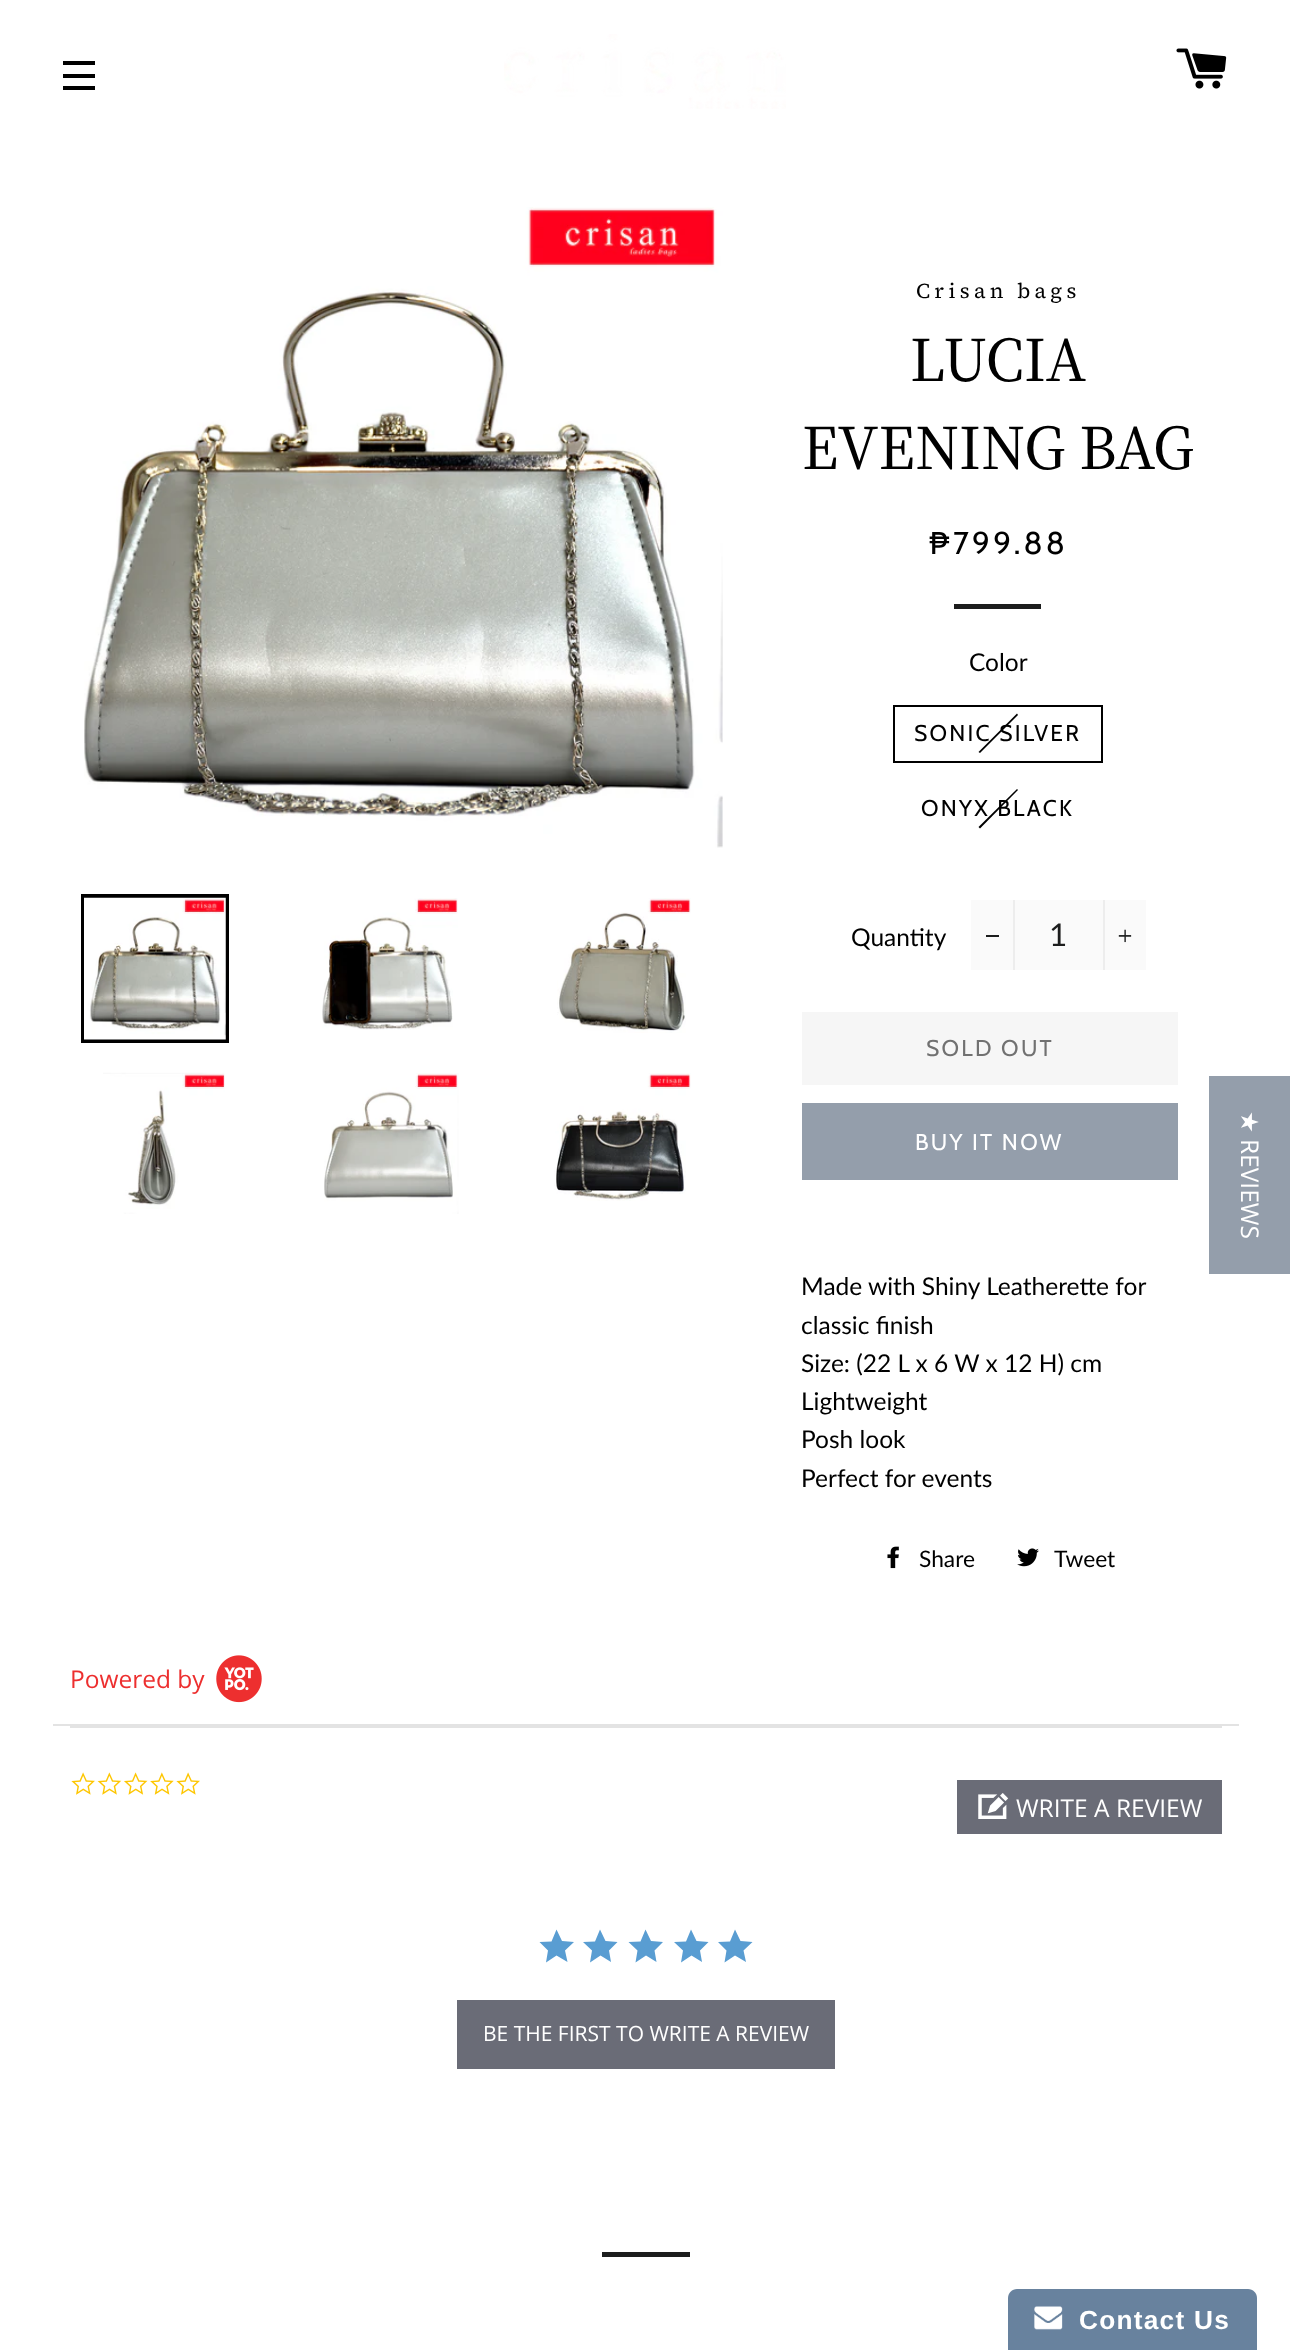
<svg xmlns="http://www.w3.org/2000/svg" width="1290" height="2350">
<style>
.a{font:21px 'Source Serif 4';letter-spacing:4.25px;fill:#000}
.b{font:63px 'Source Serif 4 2';fill:#000}
.c{font:31.5px Cabin;letter-spacing:3.25px;fill:#000}
.d{font:24.5px Lato;fill:#000}
.e{font:22.75px Cabin;letter-spacing:2.25px;fill:#000}
.f{font:31.5px Lato;fill:#1c1d1d}
.g{font:22.75px Cabin;letter-spacing:2.25px;fill:#717171}
.h{font:22.75px Cabin;letter-spacing:2.25px;fill:#fff}
.i{font:22.75px Lato;fill:#000}
.j{font:24.5px Open Sans;fill:#ed2f2f}
.k{font:24.5px Open Sans;fill:#fff}
.l{font:21px Open Sans;fill:#fff}
.m{font:24.5px DejaVu Sans;fill:#fff}
.n{font:bold 26.25px Liberation Sans;letter-spacing:1.25px;fill:#fff}
</style>
<rect width="100%" height="100%" fill="#fff"/>
<path fill="#000" d="M63 61h32v4H63z"/>
<path fill="#000" d="M63 74h32v4H63z"/>
<path fill="#000" d="M63 86h32v4H63z"/>
<image href="1.png" x="504" y="34" width="282" height="75"/>
<image href="2.png" x="1176" y="48" width="51" height="41"/>
<image href="3.png" x="84" y="207" width="639" height="641"/>
<path fill="none" stroke="#000" stroke-width="4" d="M83 896h144v145H83z"/>
<image href="4.png" x="84" y="897" width="142" height="143"/>
<image href="5.png" x="322" y="898" width="136" height="132"/>
<image href="6.png" x="557" y="898" width="134" height="135"/>
<image href="7.png" x="103" y="1072" width="122" height="142"/>
<image href="8.png" x="324" y="1073" width="135" height="141"/>
<image href="9.png" x="554" y="1073" width="137" height="128"/>
<path fill="#1c1d1d" d="M954 604h87v5H954z"/>
<path fill="none" stroke="#000" stroke-width="2" d="M894 706h208v56H894z"/>
<path fill="#000" d="M1017 713.5l1 1.5l-38 38l-1.5-1z"/>
<path fill="#000" d="M1017 789l1 1l-38 38.5l-1.5-1.5z"/>
<path fill="#fafafa" d="M971 900h175v70H971z"/>
<path fill="#ededed" d="M1013 900h2v70H1013z"/>
<path fill="#1c1d1d" d="M986 935h13v2H986z"/>
<path fill="#ededed" d="M1103 900h2v70H1103z"/>
<image href="10.png" x="1118" y="929" width="14" height="14"/>
<path fill="#f6f6f6" d="M802 1012h376v73H802z"/>
<path fill="#949eab" d="M802 1103h376v77H802z"/>
<image href="11.png" x="887" y="1546" width="12" height="23"/>
<image href="12.png" x="1017" y="1548" width="22" height="19"/>
<path fill="#e3e3e3" d="M53 1724h1186v2H53z"/>
<image href="13.png" x="216" y="1655" width="46" height="48"/>
<path fill="#e3e3e3" d="M70 1726h1152v2H70z"/>
<image href="14.png" x="71" y="1772" width="24" height="23"/>
<image href="15.png" x="97" y="1772" width="25" height="23"/>
<image href="16.png" x="124" y="1772" width="24" height="23"/>
<image href="17.png" x="150" y="1772" width="24" height="23"/>
<image href="14.png" x="176" y="1772" width="24" height="23"/>
<path fill="#6a6c77" d="M957 1780h265v54H957z"/>
<image href="18.png" x="978" y="1793" width="31" height="26"/>
<path fill="#599dd2" d="M567.5 1962l-11-6.5l-10.5 7l2-12l-8.5-8.5l12-.5l5-12l5.5 11.5l12 1l-9 8.5z"/>
<path fill="#599dd2" d="M611 1962l-10.5-6.5l-10.5 7l2-12l-9-8.5l12-.5l5-12l5.5 11.5l12 1l-8.5 8.5z"/>
<path fill="#599dd2" d="M656.5 1962l-10.5-6.5l-10.5 7l2-12l-9-8.5l12-.5l5-12l5.5 11.5l12 1l-8.5 8.5z"/>
<path fill="#599dd2" d="M702 1962l-10.5-6.5l-10.5 7l2-12l-9-8.5l12-.5l5-12l5.5 11.5l12 1l-8.5 8.5z"/>
<path fill="#599dd2" d="M746 1962l-11-6.5l-10.5 7l2-12l-8.5-8.5l12-.5l5-12l5.5 11.5l12 1l-9 8.5z"/>
<path fill="#6a6c77" d="M457 2000h378v69H457z"/>
<path fill="#1c1d1d" d="M602 2252h88v5H602z"/>
<path fill="#949eab" d="M1209 1076h81v198H1209z"/>
<path fill="#68829e" d="M1017 2289h231c5 0 9 4 9 9v52h-249v-52c0-5 4-9 9-9z"/>
<image href="19.png" x="1034" y="2306" width="29" height="24"/>
<text class="a" x="916" y="298">Crisan bags</text>
<text class="b" x="910" y="381">LUCIA</text>
<text class="b" x="802" y="469">EVENING BAG</text>
<text class="c" x="929" y="554">₱799.88</text>
<text class="d" x="969" y="671">Color</text>
<text class="e" x="914" y="741">SONIC SILVER</text>
<text class="e" x="921" y="816">ONYX BLACK</text>
<text class="d" x="851" y="946">Quantity</text>
<text class="f" x="1049" y="946">1</text>
<text class="g" x="926" y="1056">SOLD OUT</text>
<text class="h" x="915" y="1150">BUY IT NOW</text>
<text class="d" x="801" y="1295">Made with Shiny Leatherette for</text>
<text class="d" x="801" y="1334">classic finish</text>
<text class="d" x="801" y="1372">Size: (22 L x 6 W x 12 H) cm</text>
<text class="d" x="801" y="1410">Lightweight</text>
<text class="d" x="801" y="1448">Posh look</text>
<text class="d" x="801" y="1487">Perfect for events</text>
<text class="i" x="919" y="1567">Share</text>
<text class="i" x="1054" y="1567">Tweet</text>
<text class="j" x="70" y="1688">Powered by</text>
<text class="k" x="1016" y="1817">WRITE A REVIEW</text>
<text class="l" x="483" y="2041">BE THE FIRST TO WRITE A REVIEW</text>
<text class="m" x="1241" y="1111" transform="rotate(90 1241 1111)">★</text>
<text class="k" x="1241" y="1139" transform="rotate(90 1241 1139)">REVIEWS</text>
<text class="n" x="1079" y="2329">Contact Us</text>
</svg>
